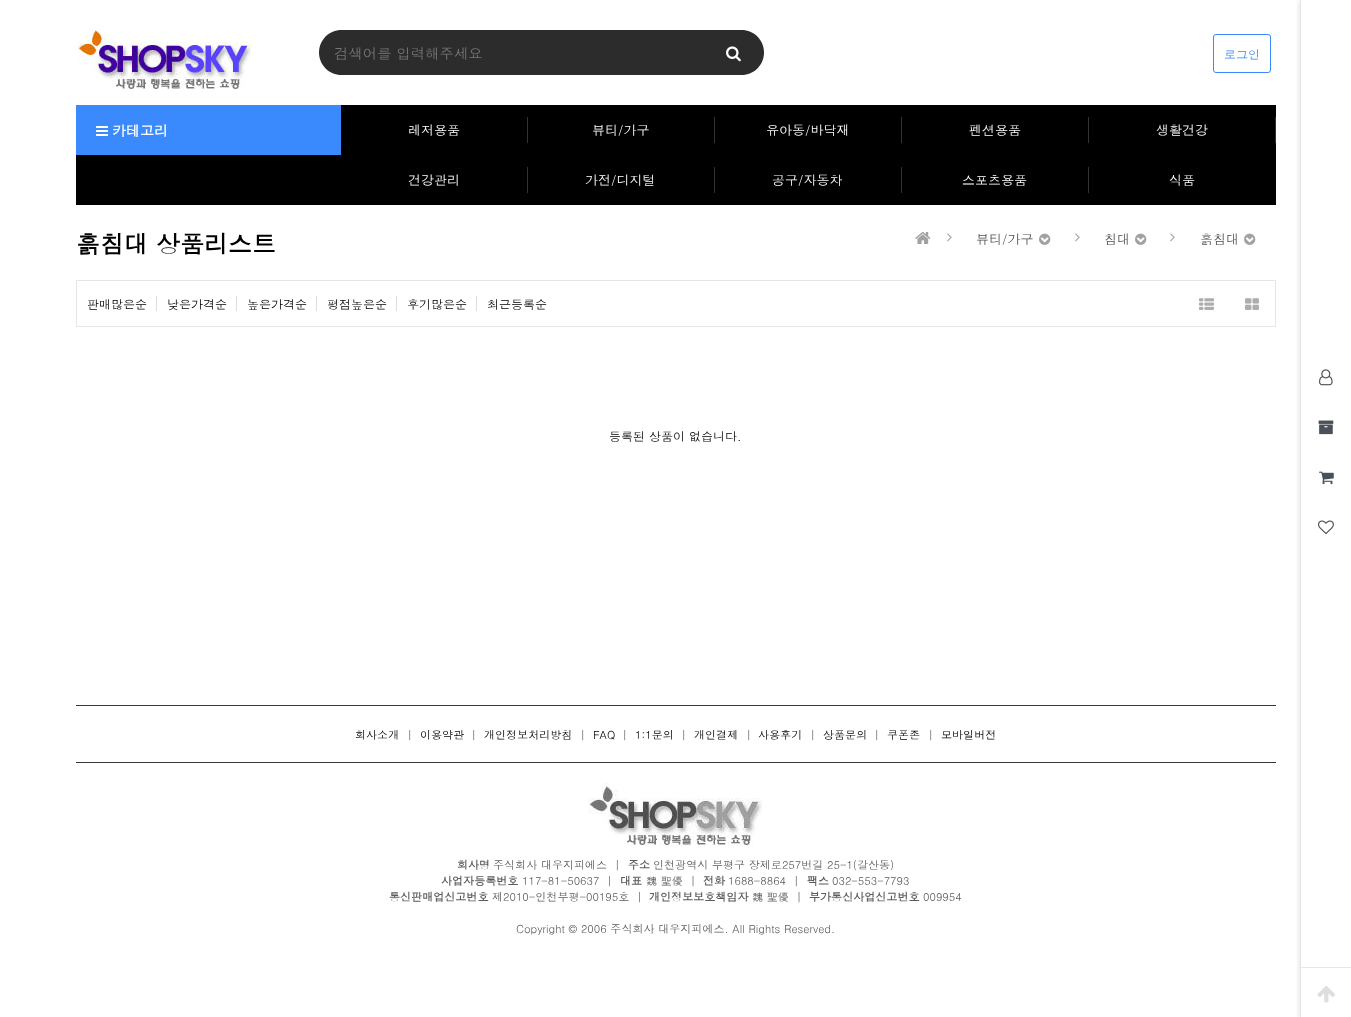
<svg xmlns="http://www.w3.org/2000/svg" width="1351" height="1017">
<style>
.a{font:14.4px Dotum;fill:#757575}
.b{font:12px Dotum;fill:#3a8afd}
.c{font:bold 14px Dotum;fill:#fff}
.d{font:13px Dotum;fill:#fff}
.e{font:bold 24px Dotum;fill:#000}
.f{font:13px Dotum;fill:#4f4f4f}
.g{font:12px Dotum;fill:#000}
.h{font:11.05px Dotum;fill:#000}
.i{font:11.05px Dotum;fill:#5b5b5b}
.j{font:bold 11.05px Dotum;fill:#5b5b5b}
</style>
<defs>
<clipPath id="clip1"><path d="M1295 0h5v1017H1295z"/></clipPath>
</defs>
<rect width="100%" height="100%" fill="#fff"/>
<image href="1.png" x="77" y="30" width="175" height="59"/>
<path fill="#2c2c2c" d="M341.5 30h362.5v45h-362.5c-12.5 0-22.5-10-22.5-22.5c0-12.5 10-22.5 22.5-22.5z"/>
<path fill="#2c2c2c" d="M704 30h37.5c12.5 0 22.5 10 22.5 22.5c0 12.5-10 22.5-22.5 22.5h-37.5z"/>
<image href="2.png" x="726" y="46" width="15" height="16"/>
<rect fill="none" stroke="#3a8afd" x="1213.5" y="34.5" width="57" height="38" rx="2.5"/>
<path fill="#000" d="M76 105h1200v100H76z"/>
<path fill="#3a8afd" d="M76 105h265v50H76z"/>
<image href="3.png" x="96" y="126" width="12" height="10"/>
<path fill="#333" d="M527 117h1v26H527z"/>
<path fill="#333" d="M714 117h1v26H714z"/>
<path fill="#333" d="M901 117h1v26H901z"/>
<path fill="#333" d="M1088 117h1v26H1088z"/>
<path fill="#333" d="M1275 117h1v26H1275z"/>
<path fill="#333" d="M527 167h1v26H527z"/>
<path fill="#333" d="M714 167h1v26H714z"/>
<path fill="#333" d="M901 167h1v26H901z"/>
<path fill="#333" d="M1088 167h1v26H1088z"/>
<g clip-path="url(#clip1)">
<path fill="#d6d6d6" filter="blur(2.5px)" d="M1300 1h51v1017H1300z"/>
</g>
<path fill="#e5e7ea" d="M1300 0h1v1017H1300z"/>
<image href="4.png" x="1319" y="369" width="14" height="17"/>
<image href="5.png" x="1318" y="420" width="16" height="15"/>
<image href="6.png" x="1319" y="471" width="15" height="14"/>
<image href="7.png" x="1318" y="520" width="16" height="15"/>
<path fill="#e5e7ea" d="M1301 967h50v1H1301z"/>
<image href="8.png" x="1317" y="986" width="18" height="17"/>
<image href="9.png" x="915" y="232" width="16" height="12"/>
<image href="10.png" x="947" y="233" width="5" height="9"/>
<image href="11.png" x="1039" y="233" width="12" height="12"/>
<image href="10.png" x="1075" y="233" width="5" height="9"/>
<image href="11.png" x="1135" y="233" width="12" height="12"/>
<image href="10.png" x="1170" y="233" width="5" height="9"/>
<image href="11.png" x="1244" y="233" width="12" height="12"/>
<path fill="none" stroke="#e3e5e8" d="M76.5 280.5h1199v46H76.5z"/>
<path fill="#ddd" d="M156 296h1v15H156z"/>
<path fill="#ddd" d="M236 296h1v15H236z"/>
<path fill="#ddd" d="M316 296h1v15H316z"/>
<path fill="#ddd" d="M396 296h1v15H396z"/>
<path fill="#ddd" d="M476 296h1v15H476z"/>
<image href="12.png" x="1199" y="298" width="15" height="12"/>
<image href="13.png" x="1245" y="298" width="14" height="12"/>
<path fill="#383838" d="M76 705h1200v1H76z"/>
<path fill="#383838" d="M76 762h1200v1H76z"/>
<image href="14.png" x="588" y="783" width="174" height="63"/>
<text class="a" x="334" y="59">검색어를 입력해주세요</text>
<text class="b" x="1224" y="59">로그인</text>
<text class="c" x="112" y="136">카테고리</text>
<text class="d" x="408" y="135">레저용품</text>
<text class="d" x="592" y="135">뷰티/가구</text>
<text class="d" x="766" y="135">유아동/바닥재</text>
<text class="d" x="969" y="135">펜션용품</text>
<text class="d" x="1156" y="135">생활건강</text>
<text class="d" x="408" y="185">건강관리</text>
<text class="d" x="585" y="185">가전/디지털</text>
<text class="d" x="772" y="185">공구/자동차</text>
<text class="d" x="962" y="185">스포츠용품</text>
<text class="d" x="1169" y="185">식품</text>
<text class="e" x="76" y="253">흙침대 상품리스트</text>
<text class="f" x="976" y="244">뷰티/가구</text>
<text class="f" x="1104" y="244">침대</text>
<text class="f" x="1200" y="244">흙침대</text>
<text class="g" x="87" y="309">판매많은순</text>
<text class="g" x="167" y="309">낮은가격순</text>
<text class="g" x="247" y="309">높은가격순</text>
<text class="g" x="327" y="309">평점높은순</text>
<text class="g" x="407" y="309">후기많은순</text>
<text class="g" x="487" y="309">최근등록순</text>
<text class="g" x="609" y="441">등록된 상품이 없습니다.</text>
<text class="h" x="355" y="739">회사소개</text>
<text class="i" x="407" y="739">|</text>
<text class="h" x="420" y="739">이용약관</text>
<text class="i" x="471" y="739">|</text>
<text class="h" x="484" y="739">개인정보처리방침</text>
<text class="i" x="580" y="739">|</text>
<text class="h" x="593" y="739">FAQ</text>
<text class="i" x="622" y="739">|</text>
<text class="h" x="635" y="739">1:1문의</text>
<text class="i" x="681" y="739">|</text>
<text class="h" x="694" y="739">개인결제</text>
<text class="i" x="746" y="739">|</text>
<text class="h" x="758" y="739">사용후기</text>
<text class="i" x="810" y="739">|</text>
<text class="h" x="823" y="739">상품문의</text>
<text class="i" x="874" y="739">|</text>
<text class="h" x="887" y="739">쿠폰존</text>
<text class="i" x="928" y="739">|</text>
<text class="h" x="941" y="739">모바일버전</text>
<text class="j" x="457" y="869">회사명</text>
<text class="i" xml:space="preserve" x="493" y="869">주식회사 대우지피에스  |</text>
<text class="j" x="628" y="869">주소</text>
<text class="i" x="653" y="869">인천광역시 부평구 장제로257번길 25-1(갈산동)</text>
<text class="j" x="441" y="885">사업자등록번호</text>
<text class="i" xml:space="preserve" x="522" y="885">117-81-50637  |</text>
<text class="j" x="620" y="885">대표</text>
<text class="i" xml:space="preserve" x="646" y="885">魏 聖優  |</text>
<text class="j" x="703" y="885">전화</text>
<text class="i" xml:space="preserve" x="728" y="885">1688-8864  |</text>
<text class="j" x="807" y="885">팩스</text>
<text class="i" x="832" y="885">032-553-7793</text>
<text class="j" x="389" y="901">통신판매업신고번호</text>
<text class="i" xml:space="preserve" x="492" y="901">제2010-인천부평-00195호  |</text>
<text class="j" x="649" y="901">개인정보보호책임자</text>
<text class="i" xml:space="preserve" x="752" y="901">魏 聖優  |</text>
<text class="j" x="809" y="901">부가통신사업신고번호</text>
<text class="i" x="923" y="901">009954</text>
<text class="i" x="516" y="933">Copyright © 2006 주식회사 대우지피에스. All Rights Reserved.</text>
</svg>
